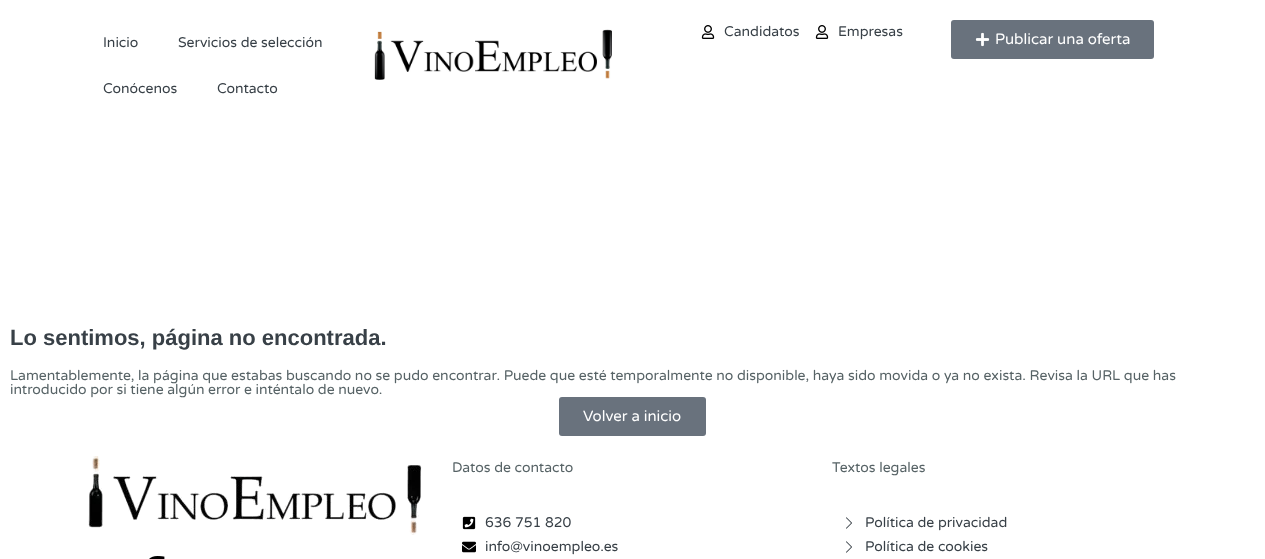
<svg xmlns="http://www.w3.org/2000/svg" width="1265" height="559">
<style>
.a{font:14px Varela Round;fill:#384047}
.b{font:15px Varela Round;fill:#fff}
.c{font:bold 22px Liberation Sans;fill:#384047}
.d{font:14px Varela Round;fill:#576366}
</style>
<rect width="100%" height="100%" fill="#fff"/>
<image href="1.png" x="374" y="29" width="238" height="51"/>
<image href="2.png" x="701" y="25" width="14" height="14"/>
<image href="2.png" x="815" y="25" width="14" height="14"/>
<rect fill="#69727d" x="951" y="20" width="203" height="39" rx="3"/>
<image href="3.png" x="975" y="32" width="15" height="15"/>
<rect fill="#69727d" x="559" y="397" width="147" height="39" rx="3"/>
<image href="4.png" x="88" y="456" width="334" height="79"/>
<image href="5.png" x="149" y="556" width="16" height="3"/>
<image href="6.png" x="462" y="516" width="14" height="14"/>
<image href="7.png" x="462" y="541" width="14" height="12"/>
<image href="8.png" x="846" y="517" width="6" height="12"/>
<image href="8.png" x="846" y="541" width="6" height="12"/>
<text class="a" x="103" y="47">Inicio</text>
<text class="a" x="178" y="47">Servicios de selección</text>
<text class="a" x="103" y="93">Conócenos</text>
<text class="a" x="217" y="93">Contacto</text>
<text class="a" x="724" y="36">Candidatos</text>
<text class="a" x="838" y="36">Empresas</text>
<text class="b" x="995" y="44">Publicar una oferta</text>
<text class="c" x="10" y="345">Lo sentimos, página no encontrada.</text>
<text class="d" x="10" y="380">Lamentablemente, la página que estabas buscando no se pudo encontrar. Puede que esté temporalmente no disponible, haya sido movida o ya no exista. Revisa la URL que has</text>
<text class="d" x="10" y="394">introducido por si tiene algún error e inténtalo de nuevo.</text>
<text class="b" x="583" y="421">Volver a inicio</text>
<text class="d" x="452" y="472">Datos de contacto</text>
<text class="a" x="485" y="527">636 751 820</text>
<text class="a" x="485" y="551">info@vinoempleo.es</text>
<text class="d" x="832" y="472">Textos legales</text>
<text class="a" x="865" y="527">Política de privacidad</text>
<text class="a" x="865" y="551">Política de cookies</text>
</svg>
